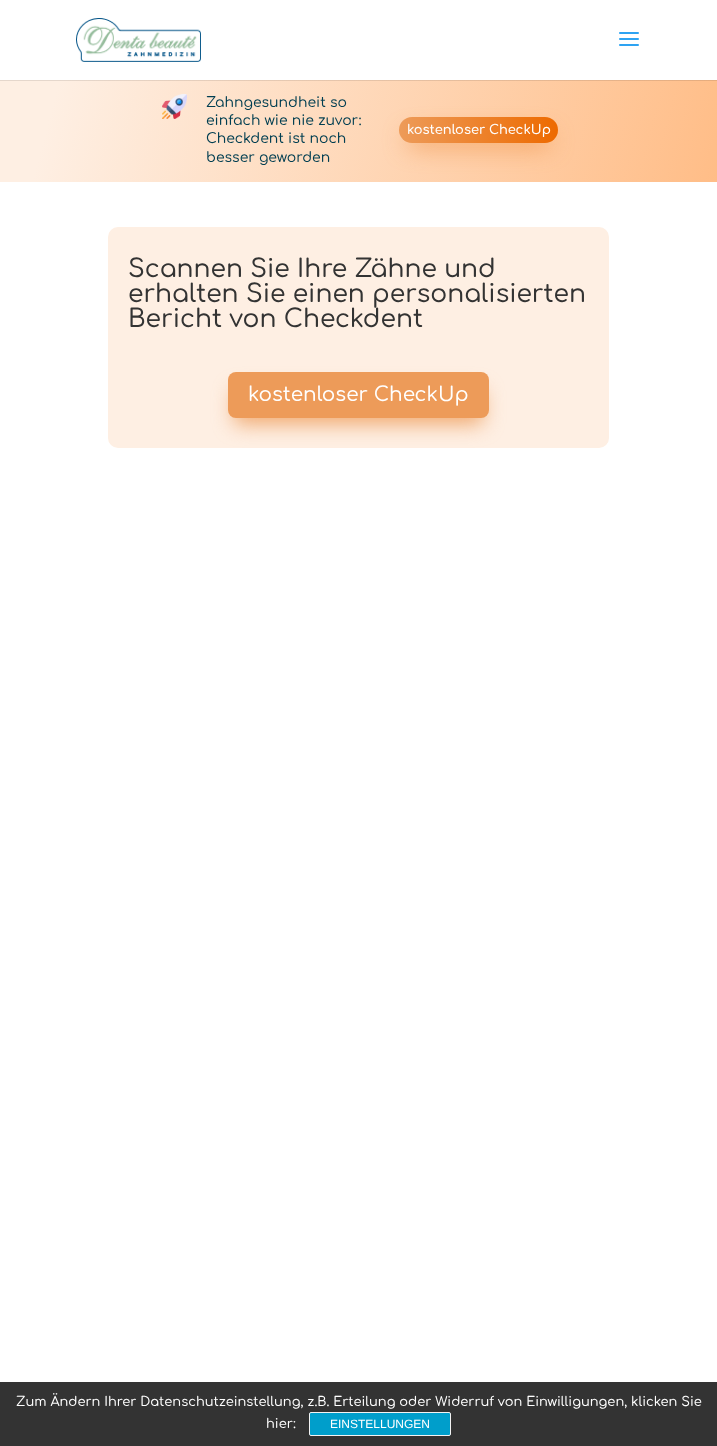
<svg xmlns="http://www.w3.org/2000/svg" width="717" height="1446">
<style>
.a{font:500 14px Comfortaa;fill:#003e51}
.b{font:600 13px Comfortaa;fill:#fff}
.c{font:500 25px Comfortaa;fill:#333}
.d{font:500 20px Comfortaa;fill:#fff}
.e{font:500 13px Comfortaa;fill:#fff}
.f{font:12px Liberation Sans;fill:#fff}
</style>
<defs>
<linearGradient id="g1" gradientUnits="userSpaceOnUse" x1="11" y1="37" x2="706" y2="224"><stop offset="0.08" stop-color="#feefe3"/><stop offset="1" stop-color="#ffbd87"/></linearGradient>
<linearGradient id="g2" gradientUnits="userSpaceOnUse" x1="11" y1="37" x2="706" y2="224"><stop offset="0.08" stop-color="#e5d7cc"/><stop offset="1" stop-color="#e6aa7a"/></linearGradient>
<linearGradient id="g3" gradientUnits="userSpaceOnUse" x1="399" y1="130" x2="558" y2="130"><stop offset="0" stop-color="#ed9b59"/><stop offset="1" stop-color="#ed6a00"/></linearGradient>
</defs>
<rect width="100%" height="100%" fill="#fff"/>
<image href="1.png" x="76" y="18" width="125" height="44"/>
<image href="2.png" x="619" y="32" width="20" height="14"/>
<path fill="url(#g1)" d="M0 81h717v101H0z"/>
<path fill="url(#g2)" d="M0 80h717v1H0z"/>
<image href="3.png" x="162" y="94" width="25" height="25"/>
<rect fill="#ed842fde" filter="blur(12.5px)" x="407" y="135" width="143" height="10" rx="5"/>
<rect fill="url(#g3)" x="399" y="117" width="159" height="26" rx="13"/>
<rect fill="#feefe3" x="108" y="227" width="501" height="221" rx="10"/>
<rect fill="#ed9b59d9" filter="blur(10px)" x="234" y="390" width="249" height="34" rx="2"/>
<rect fill="#ed9b59" x="228" y="372" width="261" height="46" rx="8"/>
<path fill="#333" d="M0 1382h717v64H0z"/>
<rect fill="#009ecb" stroke="#f3f3f3" x="309.5" y="1412.5" width="141" height="23" rx="1.5"/>
<text class="a" x="206" y="107">Zahngesundheit so</text>
<text class="a" x="206" y="125">einfach wie nie zuvor:</text>
<text class="a" x="206" y="143">Checkdent ist noch</text>
<text class="a" x="206" y="162">besser geworden</text>
<text class="b" x="407" y="134">kostenloser CheckUp</text>
<text class="c" x="128" y="277">Scannen Sie Ihre Zähne und</text>
<text class="c" x="128" y="302">erhalten Sie einen personalisierten</text>
<text class="c" x="128" y="327">Bericht von Checkdent</text>
<text class="d" x="248" y="401">kostenloser CheckUp</text>
<text class="e" x="16" y="1406">Zum Ändern Ihrer Datenschutzeinstellung, z.B. Erteilung oder Widerruf von Einwilligungen, klicken Sie</text>
<text class="e" x="266" y="1428">hier:</text>
<text class="f" x="330" y="1428">EINSTELLUNGEN</text>
</svg>
